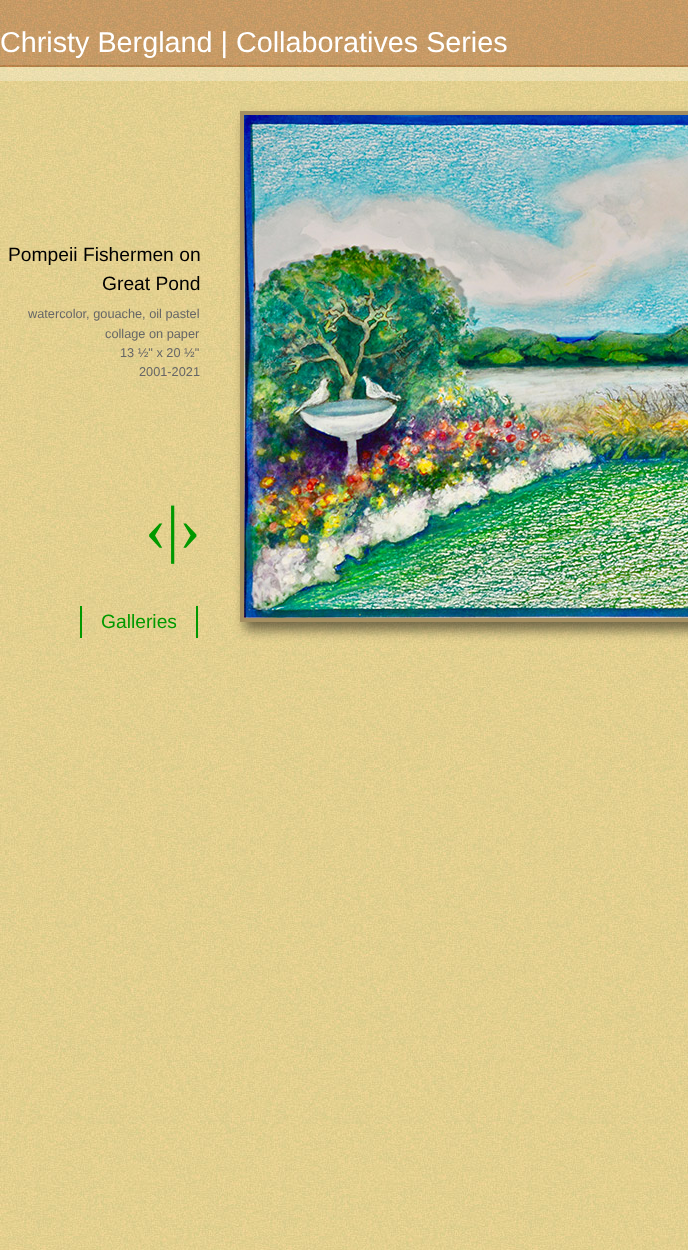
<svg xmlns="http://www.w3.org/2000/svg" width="688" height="1250">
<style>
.a{font:28.75px Liberation Sans;fill:#fff}
.b{font:19.25px Liberation Sans;fill:#000}
.c{font:12.75px Liberation Sans;fill:#666}
.d{font:64px Liberation Serif;fill:#090}
.e{font:19.25px Liberation Sans;fill:#090}
</style>
<rect width="100%" height="100%" fill="#fff"/>
<image href="1.png" x="0" y="81" width="688" height="1169"/>
<image href="2.png" x="0" y="0" width="688" height="81"/>
<path fill="#090" d="M196 606h2v32H196z"/>
<path fill="#090" d="M80 606h2v32H80z"/>
<path fill="#00000080" filter="blur(6px)" d="M245 119h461v511H245z"/>
<path fill="none" stroke="#a58f61" stroke-width="4" d="M242 113h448v507H242z"/>
<image href="3.png" x="244" y="115" width="444" height="503"/>
<text class="a" x="0" y="52">Christy Bergland | Collaboratives Series</text>
<text class="b" x="8" y="261">Pompeii Fishermen on</text>
<text class="b" x="102" y="290">Great Pond</text>
<text class="c" x="28" y="318">watercolor, gouache, oil pastel</text>
<text class="c" x="105" y="338">collage on paper</text>
<text class="c" x="120" y="357">13 ½" x 20 ½"</text>
<text class="c" x="139" y="376">2001-2021</text>
<text class="d" x="145" y="550">‹|›</text>
<text class="e" x="101" y="628">Galleries</text>
</svg>
